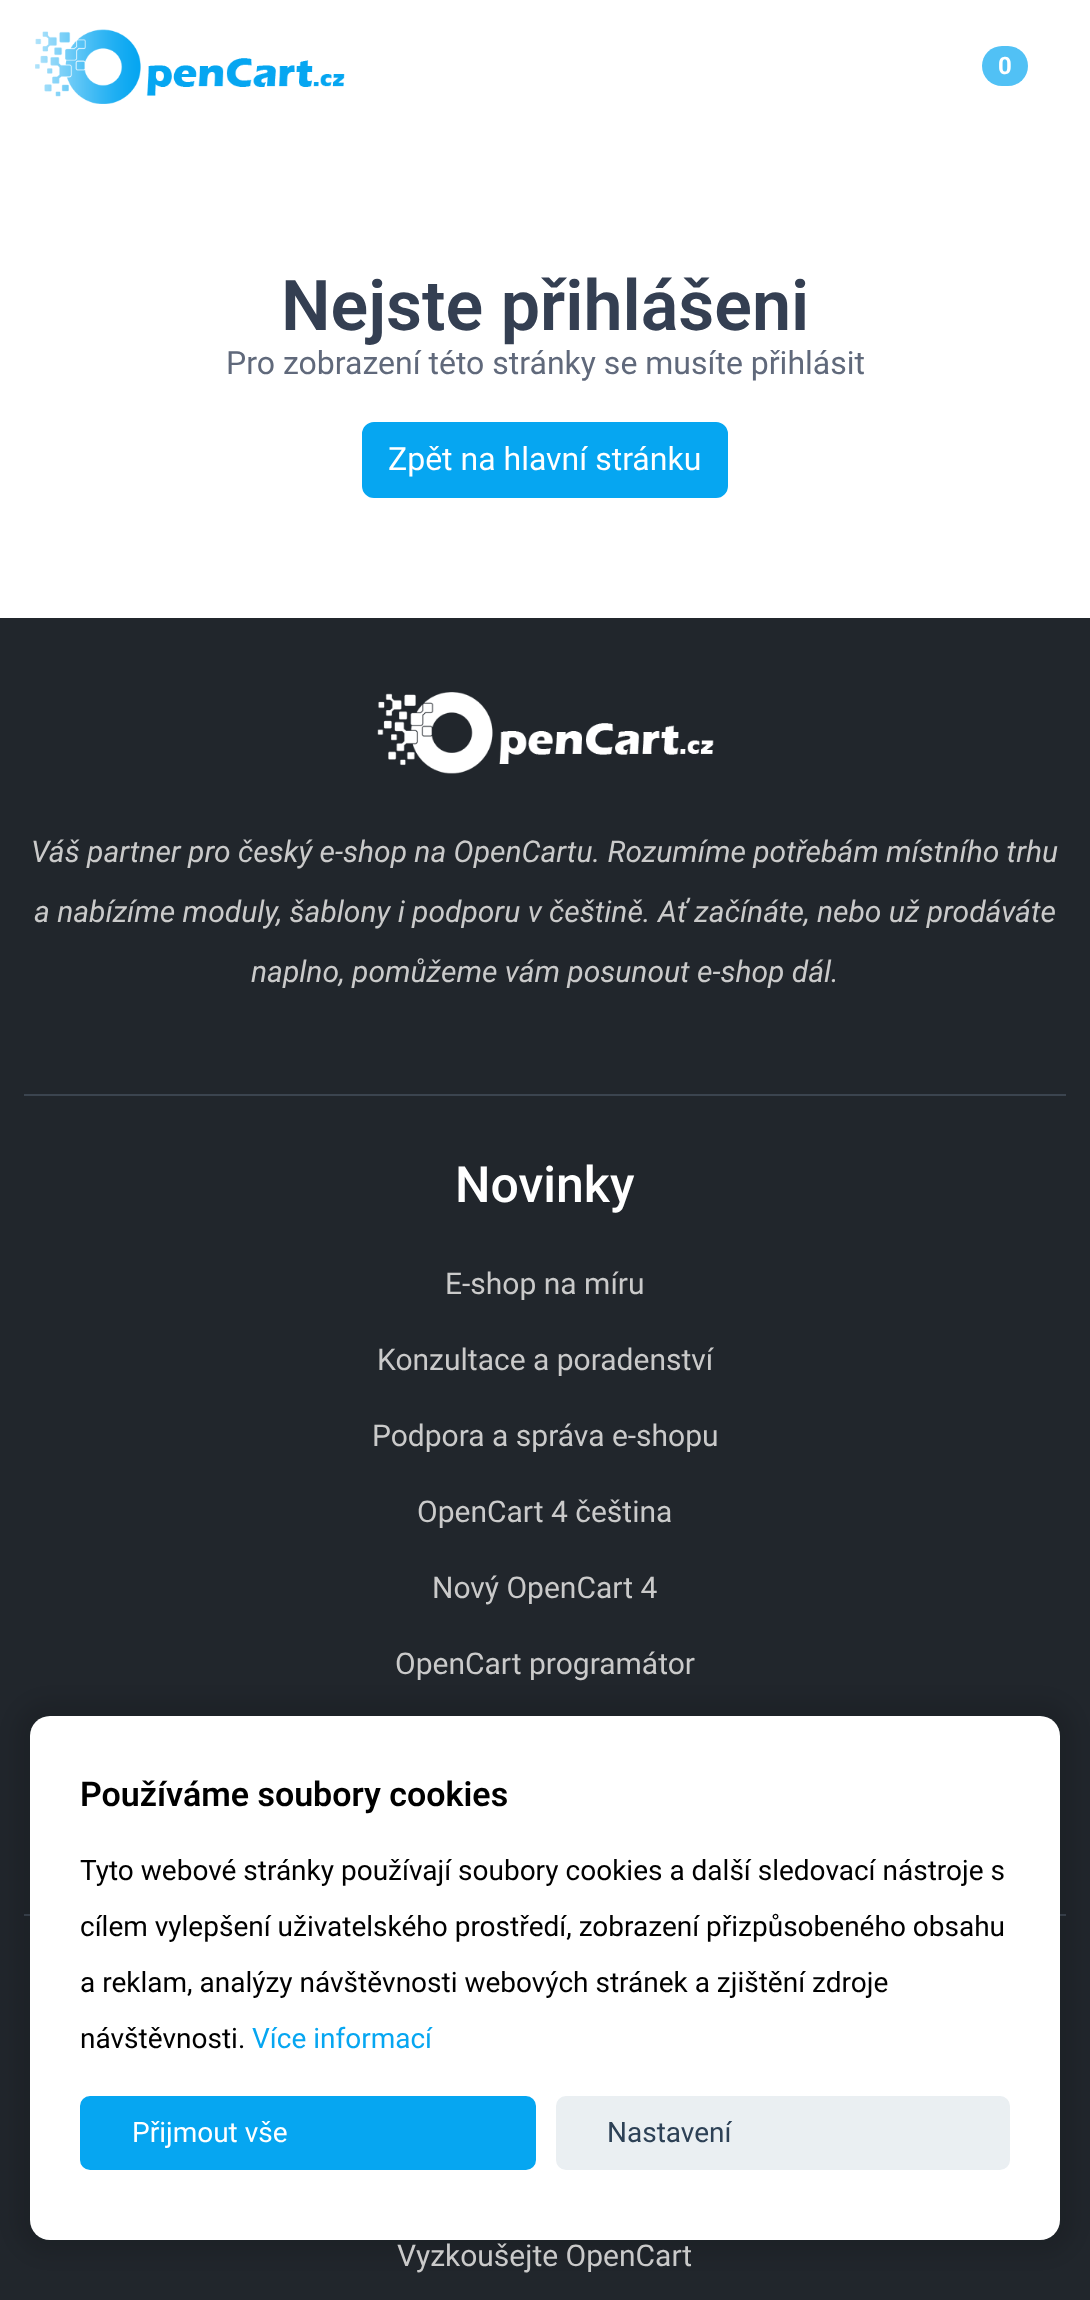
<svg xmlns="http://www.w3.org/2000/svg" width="1090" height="2300">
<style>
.a{font:bold 24px Roboto;fill:#fff}
.b{font:600 70px Roboto;fill:#343f52}
.c{font:32px Roboto;fill:#60697b}
.d{font:32px Roboto;fill:#fff}
.e{font:600 34px Roboto;fill:#000}
.f{font:28px Roboto;fill:#000}
.g{font:28px Roboto;fill:#06a6f1}
.h{font:28px Roboto;fill:#fff}
.i{font:28px Roboto;fill:#2d4156}
.j{font:italic 30px Roboto;fill:#cacaca}
.k{font:500 50px Roboto;fill:#fff}
.l{font:30px Roboto;fill:#cacaca}
</style>
<rect width="100%" height="100%" fill="#fff"/>
<image href="1.png" x="35" y="29" width="310" height="75"/>
<rect fill="#51c1f5" x="982" y="46" width="46" height="40" rx="20"/>
<rect fill="#06a6f1" stroke="#06a6f1" stroke-width="2" x="363" y="423" width="364" height="74" rx="11"/>
<path fill="#21262c" d="M0 618h1090v1682H0z"/>
<path fill="#3b444f" d="M24 1914h1042v2H24z"/>
<rect fill="#0000001a" filter="blur(8px)" x="14" y="1700" width="1062" height="556" rx="36"/>
<rect fill="#fff" x="30" y="1716" width="1030" height="524" rx="20"/>
<rect fill="#06a6f1" stroke="#06a6f1" stroke-width="2" x="81" y="2097" width="454" height="72" rx="9"/>
<rect fill="#eaeff2" stroke="#eaeff2" stroke-width="2" x="557" y="2097" width="452" height="72" rx="9"/>
<image href="2.png" x="377" y="692" width="337" height="82"/>
<path fill="#3b444f" d="M24 1094h1042v2H24z"/>
<text class="a" x="998" y="74">0</text>
<text class="b" x="281" y="330">Nejste přihlášeni</text>
<text class="c" x="226" y="374">Pro zobrazení této stránky se musíte přihlásit</text>
<text class="d" x="388" y="470">Zpět na hlavní stránku</text>
<text class="e" x="80" y="1806">Používáme soubory cookies</text>
<text class="f" x="80" y="1880">Tyto webové stránky používají soubory cookies a další sledovací nástroje s</text>
<text class="f" x="80" y="1936">cílem vylepšení uživatelského prostředí, zobrazení přizpůsobeného obsahu</text>
<text class="f" x="80" y="1992">a reklam, analýzy návštěvnosti webových stránek a zjištění zdroje</text>
<text class="f" x="80" y="2048">návštěvnosti.</text>
<text class="g" x="252" y="2048">Více informací</text>
<text class="h" x="132" y="2142">Přijmout vše</text>
<text class="i" x="607" y="2142">Nastavení</text>
<text class="j" x="31" y="862">Váš partner pro český e-shop na OpenCartu. Rozumíme potřebám místního trhu</text>
<text class="j" x="34" y="922">a nabízíme moduly, šablony i podporu v češtině. Ať začínáte, nebo už prodáváte</text>
<text class="j" x="251" y="982">naplno, pomůžeme vám posunout e-shop dál.</text>
<text class="k" x="455" y="1202">Novinky</text>
<text class="l" x="445" y="1294">E-shop na míru</text>
<text class="l" x="377" y="1370">Konzultace a poradenství</text>
<text class="l" x="372" y="1446">Podpora a správa e-shopu</text>
<text class="l" x="417" y="1522">OpenCart 4 čeština</text>
<text class="l" x="432" y="1598">Nový OpenCart 4</text>
<text class="l" x="395" y="1674">OpenCart programátor</text>
<text class="l" x="397" y="2266">Vyzkoušejte OpenCart</text>
</svg>
